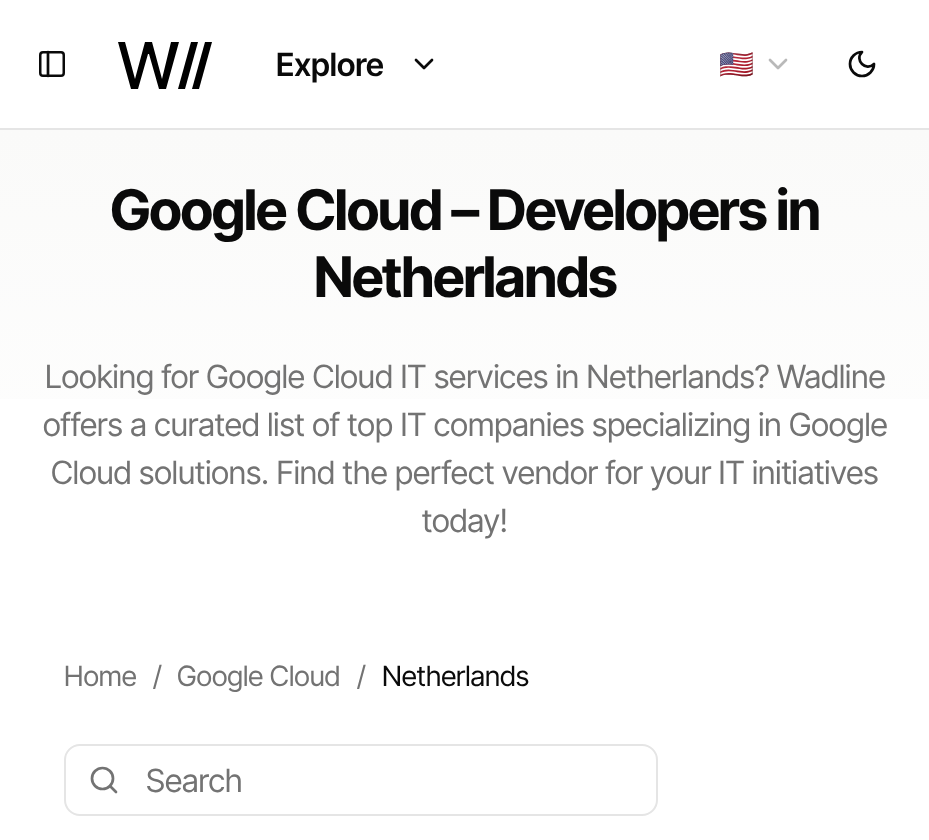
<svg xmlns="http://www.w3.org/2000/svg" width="929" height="840">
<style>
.a{font:600 32px Inter Tight;fill:#0a0a0a}
.b{font:28px Noto Color Emoji;fill:#0a0a0a}
.c{font:bold 56px Inter Tight;letter-spacing:-1.4px;fill:#0a0a0a}
.d{font:32px Inter Tight;fill:#737373}
.e{font:28px Inter Tight;fill:#737373}
.f{font:28px Inter Tight;fill:#0a0a0a}
</style>
<defs>
<linearGradient id="g1" gradientUnits="userSpaceOnUse" x1="465" y1="130" x2="465" y2="592"><stop offset="0" stop-color="#fafaf9"/><stop offset="1" stop-color="#fff"/></linearGradient>
<clipPath id="clip1"><path d="M720 44h34v40H720z"/></clipPath>
</defs>
<rect width="100%" height="100%" fill="#fff"/>
<path fill="#e5e5e5" d="M0 128h929v2H0z"/>
<rect fill="none" stroke="#0a0a0a" stroke-width="2.5" x="40.25" y="52.25" width="23.5" height="23.5" rx="2.75"/>
<path fill="none" stroke="#0a0a0a" stroke-width="2.7" stroke-linecap="round" stroke-linejoin="round" d="M48 52v24"/>
<path fill="#000" d="M131 89l-13-47h7l10 37l10-37h7l10 37l9-37h8l-13 47h-7l-10-35h-1l-10 35z"/>
<path fill="#000" d="M198 42h-7l-13 47h7z"/>
<path fill="#000" d="M212 42h-7l-13 47h7z"/>
<path fill="none" stroke="#0a0a0a" stroke-width="2.7" stroke-linecap="round" stroke-linejoin="round" d="M416 60l8 8l8-8"/>
<path fill="none" stroke="#b9b9b9" stroke-width="2.7" stroke-linecap="round" stroke-linejoin="round" d="M770 60l8 8l8-8"/>
<path fill="none" stroke="#0a0a0a" stroke-width="2.7" stroke-linecap="round" stroke-linejoin="round" d="M862 52c-8 8 4 20 12 12c0 6.5-5.5 12-12 12c-6.5 0-12-5.5-12-12c0-6.5 5.5-12 12-12z"/>
<path fill="url(#g1)" d="M0 130h929v269H0z"/>
<rect fill="none" stroke="#e5e5e5" stroke-width="2" x="65" y="745" width="592" height="70" rx="15"/>
<path fill="none" stroke="#737373" stroke-width="2.7" stroke-linecap="round" stroke-linejoin="round" d="M116 792l-6-6"/>
<circle fill="none" stroke="#737373" stroke-width="2.7" cx="102.5" cy="778.5" r="10.5"/>
<text class="a" x="276" y="76">Explore</text>
<g clip-path="url(#clip1)">
<text class="b" x="719" y="74">🇺🇸</text>
</g>
<text class="c" x="110" y="230">Google Cloud – Developers in</text>
<text class="c" x="314" y="297">Netherlands</text>
<text class="d" x="45" y="388">Looking for Google Cloud IT services in Netherlands? Wadline</text>
<text class="d" x="43" y="436">offers a curated list of top IT companies specializing in Google</text>
<text class="d" x="51" y="484">Cloud solutions. Find the perfect vendor for your IT initiatives</text>
<text class="d" x="422" y="532">today!</text>
<text class="e" x="64" y="686">Home</text>
<text class="e" x="153" y="686">/</text>
<text class="e" x="177" y="686">Google Cloud</text>
<text class="e" x="357" y="686">/</text>
<text class="f" x="382" y="686">Netherlands</text>
<text class="d" x="146" y="792">Search</text>
</svg>
